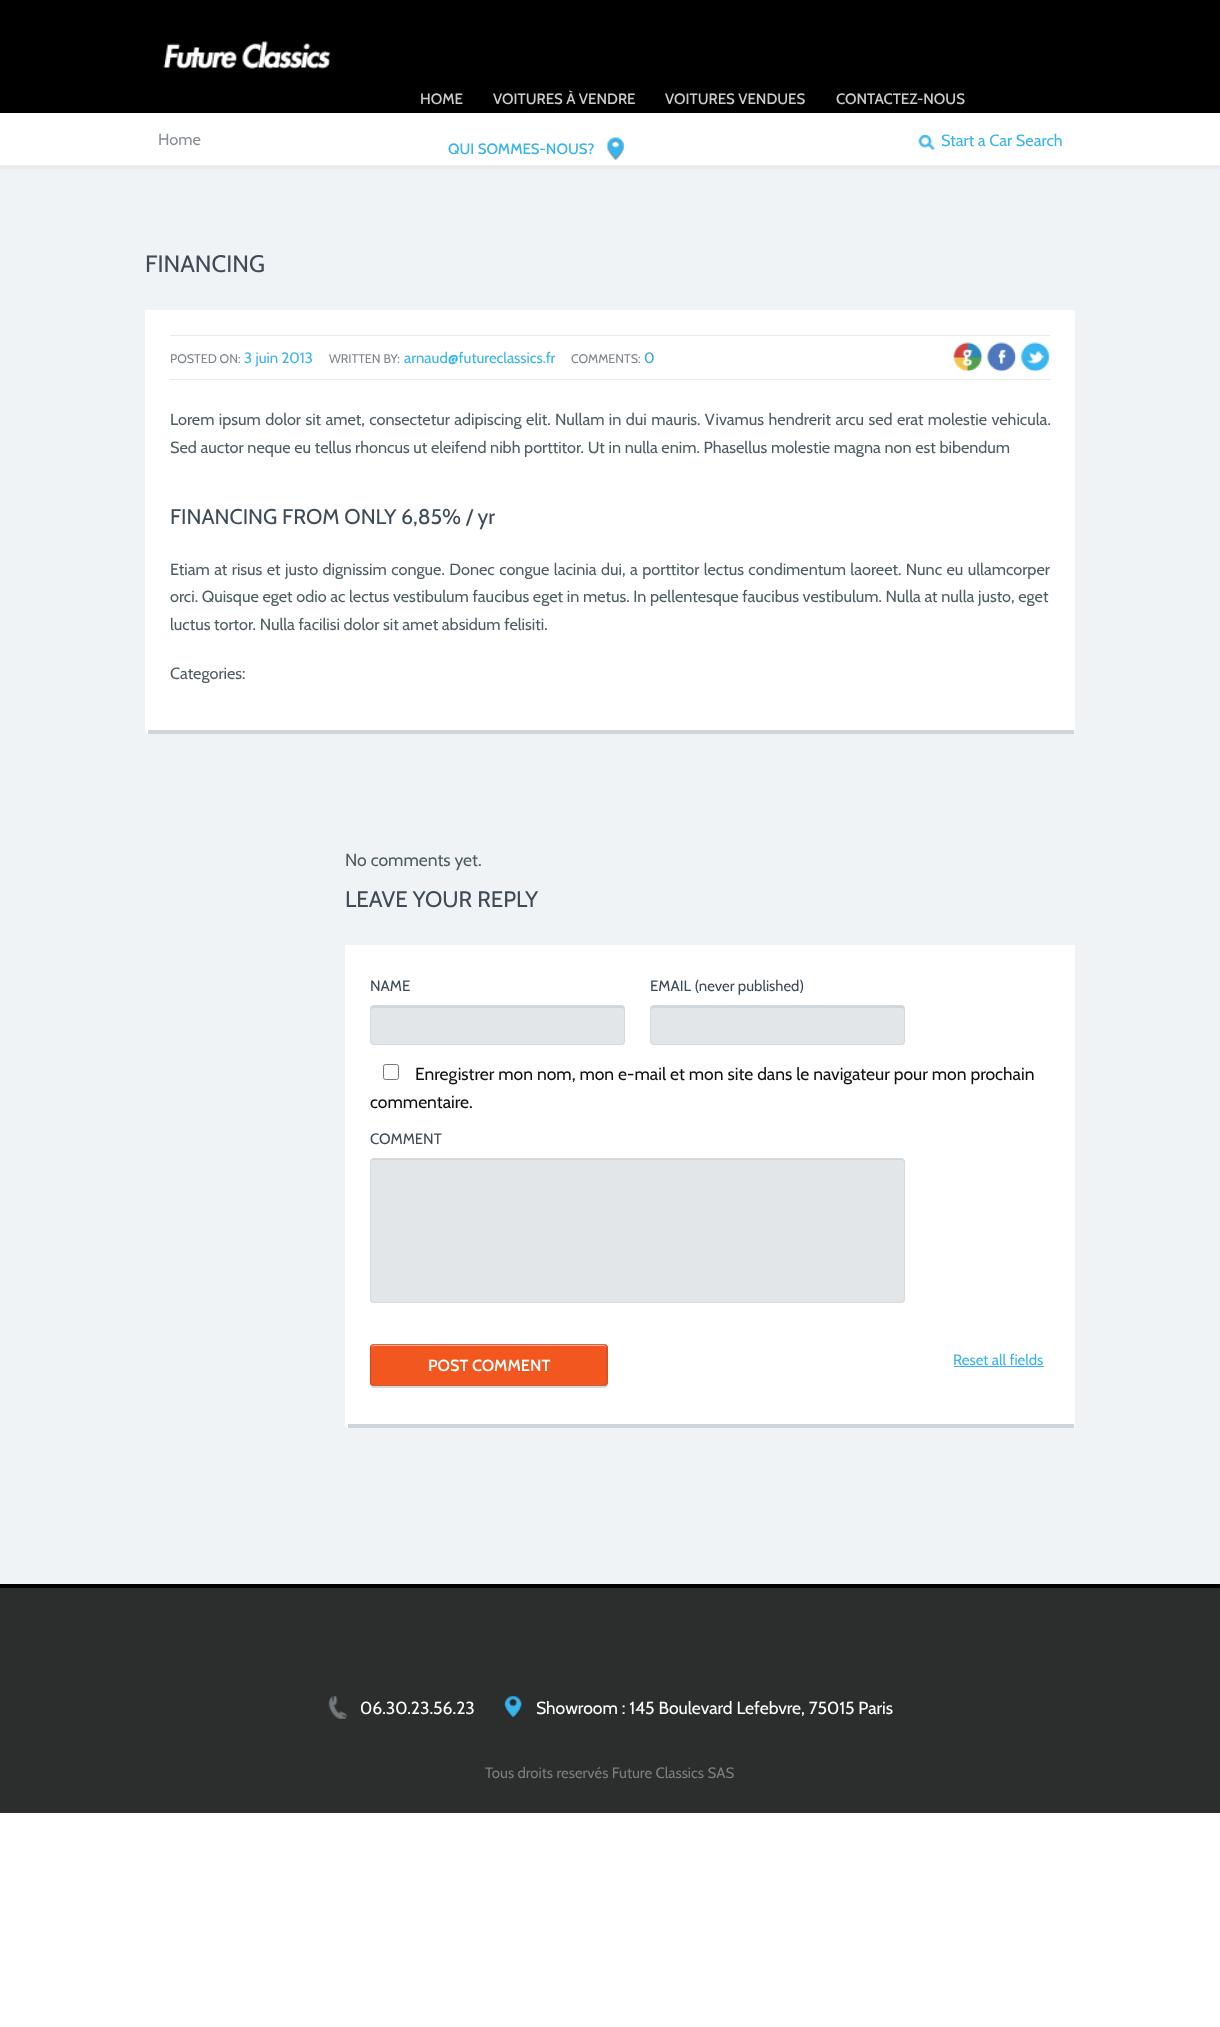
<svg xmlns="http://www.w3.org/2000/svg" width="1220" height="2027">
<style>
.a{font:500 15px Cabin;fill:#ccc}
.b{font:500 15px Cabin;fill:#39b4ed}
.c{font:16.25px Cabin;fill:#898f94}
.d{font:16.25px Cabin;fill:#39b4ed}
.e{font:23.75px Cabin;fill:#3f4b56}
.f{font:12.5px Cabin;fill:#80868c}
.g{font:15px Cabin;fill:#39b4ed}
.h{font:15px Cabin;fill:#34a4d8}
.i{font:16.25px Cabin;fill:#4f5e62}
.j{font:21.25px Cabin;fill:#3f4b56}
.k{font:17.5px Cabin;fill:#4f5e62}
.l{font:22.5px Cabin;fill:#3f4b56}
.m{font:15px Cabin;fill:#3f4b56}
.n{font:17.5px Cabin;fill:#111}
.o{font:600 16.25px Cabin;fill:#fff}
.p{font:17.5px Cabin;fill:#fff}
.q{font:15px Cabin;fill:#797e80}
</style>
<rect width="100%" height="100%" fill="#fff"/>
<path fill="#000" d="M0 0h1220v113H0z"/>
<image href="1.png" x="163" y="41" width="167" height="28"/>
<image href="2.png" x="606" y="137" width="18" height="23"/>
<image href="3.png" x="918" y="135" width="17" height="15"/>
<path fill="#f0f3f5" d="M0 169h1220v1415H0z"/>
<path fill="#e6ecef" d="M0 165h1220v4H0z"/>
<path fill="#fff" d="M145 310h930v420c0 2-2 4-4 4h-922c-2 0-4-2-4-4z"/>
<path fill="#ced6db" d="M148 730h926v4H148z"/>
<path fill="#e9e9e9" d="M170 335h880v1H170z"/>
<path fill="#e9e9e9" d="M170 379h880v1H170z"/>
<image href="4.png" x="953" y="342" width="30" height="30"/>
<image href="5.png" x="987" y="342" width="30" height="30"/>
<image href="6.png" x="1021" y="342" width="29" height="30"/>
<path fill="#fff" d="M345 945h730v479c0 2-2 4-4 4h-722c-2 0-4-2-4-4z"/>
<path fill="#ced6db" d="M348 1424h726v4H348z"/>
<rect fill="#e2e6e9" x="370" y="1005" width="255" height="40" rx="4"/>
<path fill="#ced6db" d="M374 1008h247c2 0 3 1 3 2v-2c0-1-1-2-2-2h-248c-2 0-3 1-3 2v2c0-1 1-2 3-2z"/>
<rect fill="none" stroke="#d6dadd" x="370.5" y="1005.5" width="254" height="39" rx="3.5"/>
<rect fill="#e2e6e9" x="650" y="1005" width="255" height="40" rx="4"/>
<path fill="#ced6db" d="M654 1008h247c2 0 3 1 3 2v-2c0-1-1-2-2-2h-248c-2 0-3 1-3 2v2c0-1 1-2 3-2z"/>
<rect fill="none" stroke="#d6dadd" x="650.5" y="1005.5" width="254" height="39" rx="3.5"/>
<rect fill="none" stroke="#767676" x="383.5" y="1064.5" width="15" height="15" rx="2"/>
<rect fill="#e2e6e9" x="370" y="1158" width="535" height="145" rx="4"/>
<path fill="#ced6db" d="M374 1160h527c2 0 3 1 3 2c0-2-1-3-2-3h-528c-2 0-3 1-3 3c0-1 1-2 3-2z"/>
<rect fill="none" stroke="#d6dadd" x="370.5" y="1158.5" width="534" height="144" rx="3.5"/>
<rect fill="#00000026" filter="blur(0.5px)" x="370" y="1345" width="238" height="43" rx="4"/>
<rect fill="#f25720" x="370" y="1344" width="238" height="42" rx="4"/>
<path fill="#f9ab90" d="M374 1346h230c1 0 2 1 2 3c0-2 0-4-2-4h-230c-3 0-3 2-3 4c0-2 1-3 3-3z"/>
<path fill="none" stroke="#d16546" stroke-width="1.2" d="M371.5 1345.5l2.5-1h230l2 1"/>
<path fill="none" stroke="#ca4e2a" stroke-width="1.2" d="M606 1345.5c.5 .5 1 1 1 2v35c0 1-.5 1.5-1 2"/>
<path fill="none" stroke="#ca5d3d" stroke-width="1.2" d="M606 1384.5l-2 1h-230l-2.5-1"/>
<path fill="none" stroke="#ca4e2a" stroke-width="1.2" d="M371.5 1384.5c-.5-.5-1-1-1-2v-35c0-1 .5-1.5 1-2"/>
<path fill="#39b4ed" d="M954 1366h90v1H954z"/>
<path fill="#2c2d2d" d="M0 1588h1220v225H0z"/>
<path fill="#000" d="M0 1584h1220v4H0z"/>
<image href="7.png" x="328" y="1696" width="20" height="23"/>
<image href="8.png" x="504" y="1696" width="18" height="23"/>
<text class="a" x="420" y="104">HOME</text>
<text class="a" x="493" y="104">VOITURES À VENDRE</text>
<text class="a" x="665" y="104">VOITURES VENDUES</text>
<text class="a" x="836" y="104">CONTACTEZ-NOUS</text>
<text class="b" x="448" y="154">QUI SOMMES-NOUS?</text>
<text class="c" x="158" y="145">Home</text>
<text class="d" x="941" y="146">Start a Car Search</text>
<text class="e" x="145" y="272">FINANCING</text>
<text class="f" x="170" y="363">POSTED ON:</text>
<text class="g" x="244" y="363">3 juin 2013</text>
<text class="f" x="329" y="363">WRITTEN BY:</text>
<text class="g" x="404" y="363">arnaud@futureclassics.fr</text>
<text class="f" x="571" y="363">COMMENTS:</text>
<text class="h" x="644" y="363">0</text>
<text class="i" x="170" y="425" word-spacing="0.75">Lorem ipsum dolor sit amet, consectetur adipiscing elit. Nullam in dui mauris. Vivamus hendrerit arcu sed erat molestie vehicula.</text>
<text class="i" x="170" y="453">Sed auctor neque eu tellus rhoncus ut eleifend nibh porttitor. Ut in nulla enim. Phasellus molestie magna non est bibendum</text>
<text class="j" x="170" y="524">FINANCING FROM ONLY 6,85% / yr</text>
<text class="i" x="170" y="575" word-spacing="0.8">Etiam at risus et justo dignissim congue. Donec congue lacinia dui, a porttitor lectus condimentum laoreet. Nunc eu ullamcorper</text>
<text class="i" x="170" y="602">orci. Quisque eget odio ac lectus vestibulum faucibus eget in metus. In pellentesque faucibus vestibulum. Nulla at nulla justo, eget</text>
<text class="i" x="170" y="630">luctus tortor. Nulla facilisi dolor sit amet absidum felisiti.</text>
<text class="i" x="170" y="679">Categories:</text>
<text class="k" x="345" y="866">No comments yet.</text>
<text class="l" x="345" y="907">LEAVE YOUR REPLY</text>
<text class="m" x="370" y="991">NAME</text>
<text class="m" x="650" y="991">EMAIL (never published)</text>
<text class="n" x="415" y="1080">Enregistrer mon nom, mon e-mail et mon site dans le navigateur pour mon prochain</text>
<text class="n" x="370" y="1108">commentaire.</text>
<text class="m" x="370" y="1144">COMMENT</text>
<text class="o" x="428" y="1371">POST COMMENT</text>
<text class="g" x="953" y="1365">Reset all fields</text>
<text class="p" x="360" y="1714">06.30.23.56.23</text>
<text class="p" x="536" y="1714">Showroom : 145 Boulevard Lefebvre, 75015 Paris</text>
<text class="q" x="485" y="1778">Tous droits reservés Future Classics SAS</text>
</svg>
